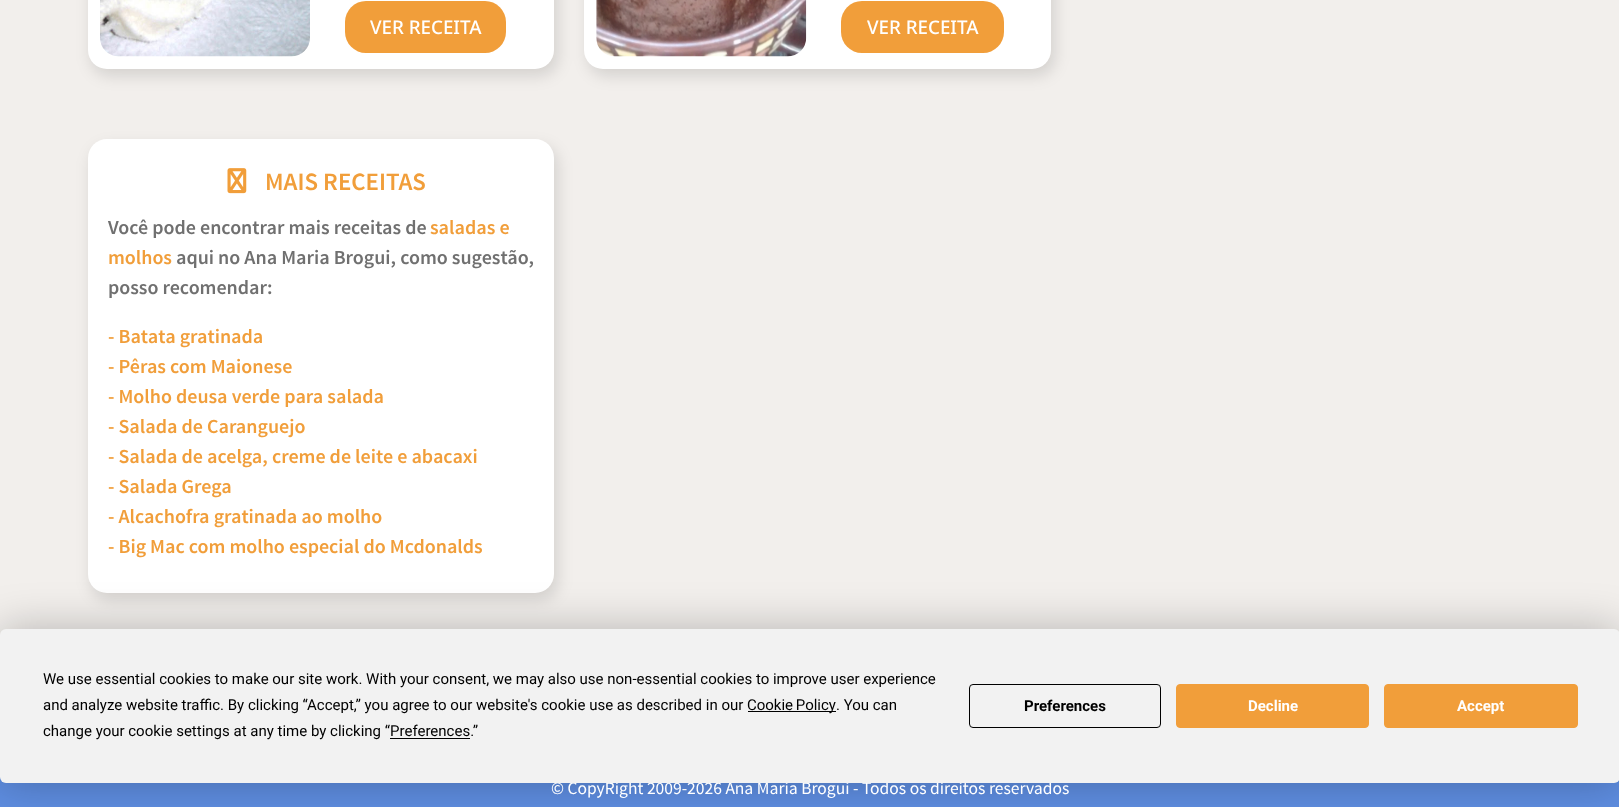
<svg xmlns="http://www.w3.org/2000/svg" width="1619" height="807">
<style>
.a{font:500 18.75px Noto Sans;fill:#fff}
.b{font:600 25px Source Sans Pro;fill:#f19e3a}
.c{font:600 20px Source Sans Pro;fill:#707070}
.d{font:600 20px Source Sans Pro;fill:#f19e3a}
.e{font:17.5px Source Sans Pro;fill:#fff}
.f{font:15px Roboto;fill:#000}
.g{font:bold 15px Roboto;fill:#000}
.h{font:bold 15px Roboto;fill:#fff}
</style>
<rect width="100%" height="100%" fill="#f2efec"/>
<rect fill="#0000001f" filter="blur(7.5px)" x="91" y="-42" width="467" height="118" rx="19"/>
<rect fill="#fff" x="88" y="-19" width="466" height="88" rx="19"/>
<image href="1.png" x="100" y="0" width="210" height="57"/>
<rect fill="#f19e3a" x="345" y="1" width="161" height="52" rx="21"/>
<rect fill="#0000001f" filter="blur(7.5px)" x="588" y="-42" width="467" height="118" rx="19"/>
<rect fill="#fff" x="584" y="-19" width="467" height="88" rx="19"/>
<image href="2.png" x="596" y="0" width="211" height="57"/>
<rect fill="#f19e3a" x="841" y="1" width="163" height="52" rx="21"/>
<rect fill="#0000001f" filter="blur(7.5px)" x="91" y="146" width="467" height="454" rx="19"/>
<rect fill="#fff" x="88" y="139" width="466" height="454" rx="19"/>
<image href="3.png" x="227" y="168" width="20" height="26"/>
<path fill="#5e8de0" d="M0 777h1619v30H0z"/>
<rect fill="#00000040" filter="blur(22px)" y="629" width="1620" height="154" rx="6"/>
<text class="a" x="370" y="34">VER RECEITA</text>
<text class="a" x="867" y="34">VER RECEITA</text>
<text class="b" x="265" y="190">MAIS RECEITAS</text>
<text class="c" x="108" y="234">Você pode encontrar mais receitas de</text>
<text class="d" x="430" y="234">saladas e</text>
<text class="d" x="108" y="264">molhos</text>
<text class="c" x="176" y="264">aqui no Ana Maria Brogui, como sugestão,</text>
<text class="c" x="108" y="294">posso recomendar:</text>
<text class="d" x="108" y="343">- Batata gratinada</text>
<text class="d" x="108" y="373">- Pêras com Maionese</text>
<text class="d" x="108" y="403">- Molho deusa verde para salada</text>
<text class="d" x="108" y="433">- Salada de Caranguejo</text>
<text class="d" x="108" y="463">- Salada de acelga, creme de leite e abacaxi</text>
<text class="d" x="108" y="493">- Salada Grega</text>
<text class="d" x="108" y="523">- Alcachofra gratinada ao molho</text>
<text class="d" x="108" y="553">- Big Mac com molho especial do Mcdonalds</text>
<text class="e" x="551" y="794">© CopyRight 2009-2026 Ana Maria Brogui - Todos os direitos reservados</text>
<rect fill="#f2f2f2" y="629" width="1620" height="154" rx="6"/>
<text class="f" x="43" y="684">We use essential cookies to make our site work. With your consent, we may also use non-essential cookies to improve user experience</text>
<text class="f" x="43" y="710">and analyze website traffic. By clicking “Accept,” you agree to our website's cookie use as described in our</text>
<path fill="#000" d="M748 711h88v1H748z"/>
<text class="f" x="747" y="710" word-spacing="-1">Cookie Policy</text>
<text class="f" x="836" y="710">. You can</text>
<text class="f" x="43" y="736">change your cookie settings at any time by clicking “Preferences.”</text>
<path fill="#000" d="M390 738h80v1H390z"/>
<rect fill="none" stroke="#000" x="969.5" y="684.5" width="191" height="43" rx="3.5"/>
<text class="g" x="1024" y="711">Preferences</text>
<rect fill="#f19e3a" stroke="#f19e3a" x="1176.5" y="684.5" width="192" height="43" rx="3.5"/>
<text class="h" x="1248" y="711">Decline</text>
<rect fill="#f19e3a" stroke="#f19e3a" x="1384.5" y="684.5" width="193" height="43" rx="3.5"/>
<text class="h" x="1457" y="711">Accept</text>
</svg>
